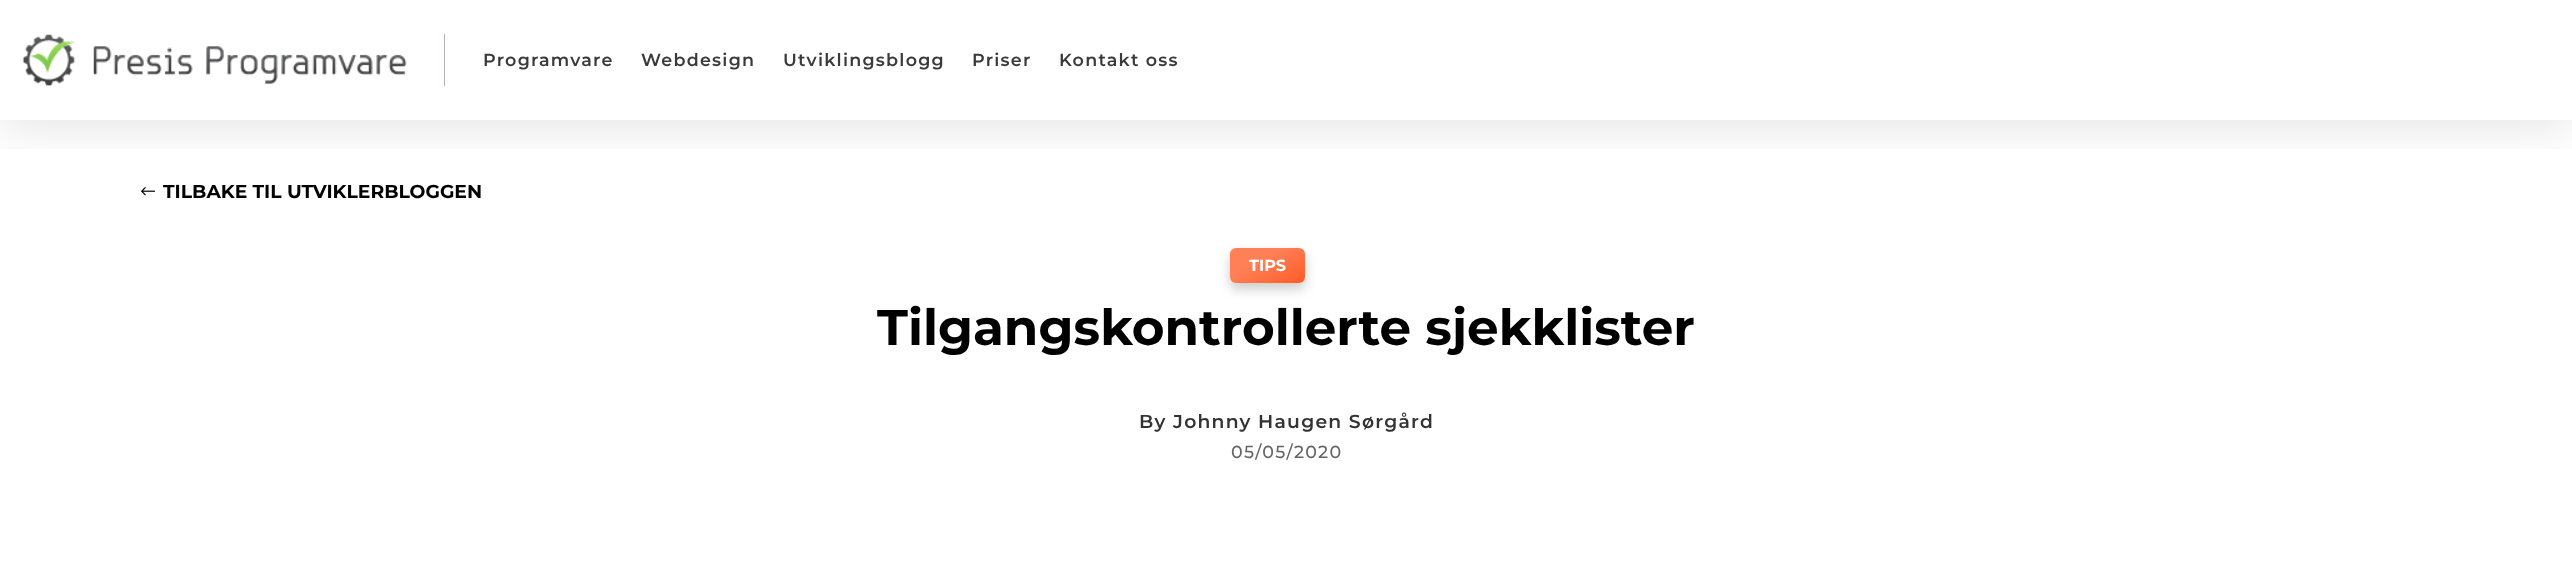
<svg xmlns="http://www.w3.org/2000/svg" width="2572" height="586">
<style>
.a{font:600 17.5px Montserrat;letter-spacing:1.25px;fill:#3a3a3a}
.b{font:bold 18.75px Montserrat;fill:#000}
.c{font:bold 16px Montserrat;fill:#fff}
.d{font:bold 50px Montserrat;fill:#000}
.e{font:600 18.75px Montserrat;letter-spacing:1.25px;fill:#333}
.f{font:500 17.5px Montserrat;letter-spacing:1.25px;fill:#666}
</style>
<defs>
<clipPath id="clip1"><path d="M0 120h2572v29H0z"/></clipPath>
<linearGradient id="g1" gradientUnits="userSpaceOnUse" x1="1251" y1="236" x2="1284" y2="294"><stop offset="0.38" stop-color="#ff8057"/><stop offset="1" stop-color="#ff5c26"/></linearGradient>
</defs>
<rect width="100%" height="100%" fill="#fff"/>
<image href="2.png" x="141" y="187" width="15" height="9"/>
<g clip-path="url(#clip1)">
<path fill="#0000001c" filter="blur(25px)" d="M0 6h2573v120H0z"/>
</g>
<path fill="#bdb1b1" d="M444 34h1v52H444z"/>
<image href="1.png" x="22" y="34" width="385" height="52"/>
<rect fill="#00000033" filter="blur(6px)" x="1230" y="254" width="75" height="35" rx="6"/>
<rect fill="url(#g1)" x="1230" y="248" width="75" height="35" rx="6"/>
<text class="a" x="483" y="66">Programvare</text>
<text class="a" x="641" y="66">Webdesign</text>
<text class="a" x="783" y="66">Utviklingsblogg</text>
<text class="a" x="972" y="66">Priser</text>
<text class="a" x="1059" y="66">Kontakt oss</text>
<text class="b" x="163" y="198">TILBAKE TIL UTVIKLERBLOGGEN</text>
<text class="c" x="1249" y="271">TIPS</text>
<text class="d" x="877" y="345">Tilgangskontrollerte sjekklister</text>
<text class="e" x="1139" y="428">By Johnny Haugen Sørgård</text>
<text class="f" x="1231" y="458">05/05/2020</text>
</svg>
